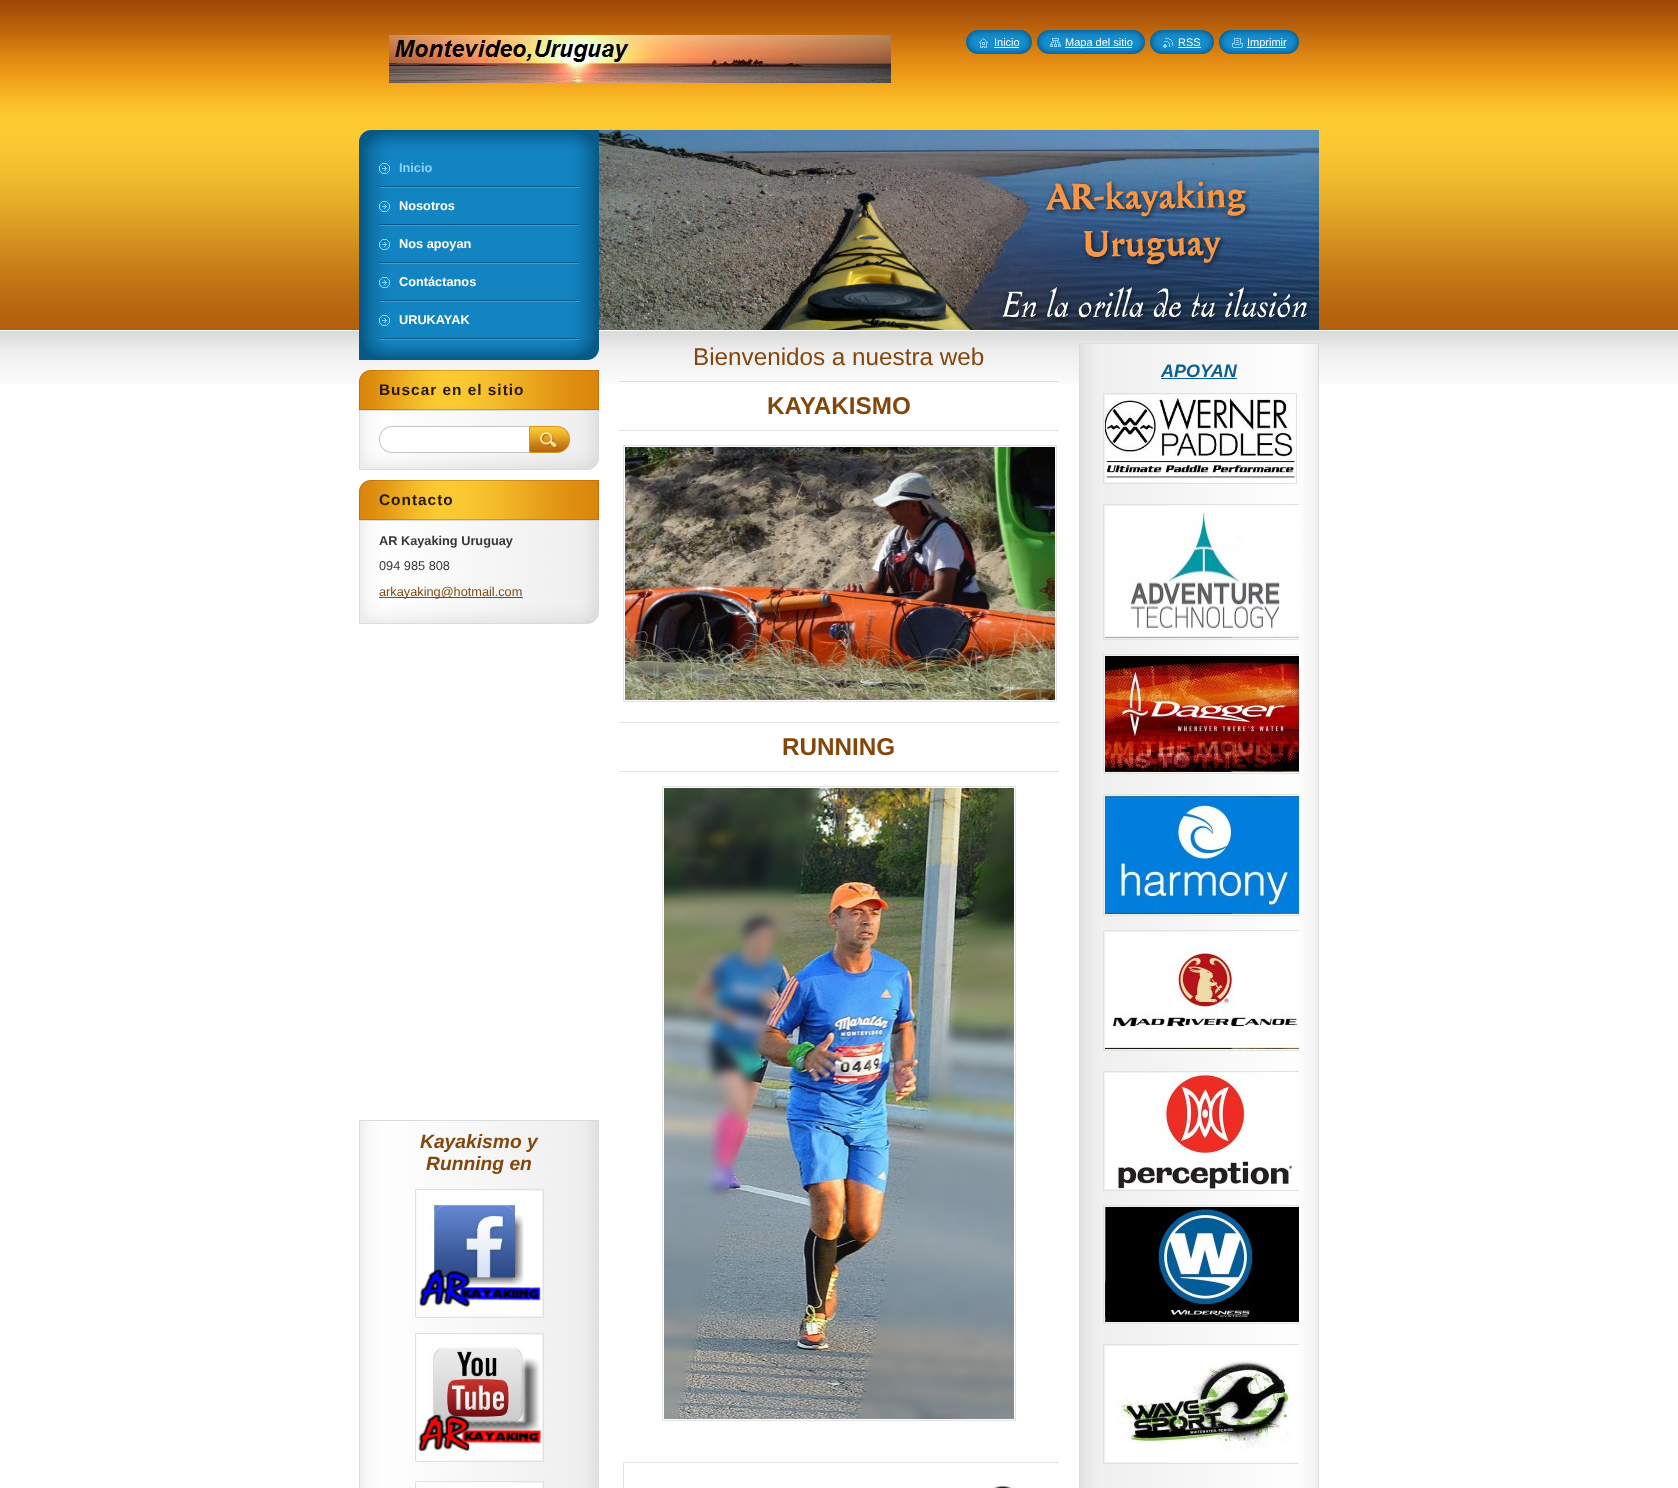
<svg xmlns="http://www.w3.org/2000/svg" width="1678" height="1488">
<style>
.a{font:11px Liberation Sans;fill:#fff}
.b{font:bold 12.75px Liberation Sans;fill:#86d4ff}
.c{font:bold 12.75px Liberation Sans;fill:#fff}
.d{font:bold 15.4px Liberation Sans;letter-spacing:1px;fill:#251801}
.e{font:bold 12.75px Liberation Sans;fill:#363636}
.f{font:12.75px Liberation Sans;fill:#363636}
.g{font:12.75px Liberation Sans;fill:#83460b}
.h{font:italic bold 19.25px Liberation Sans;fill:#83460b}
.i{font:24.25px Liberation Sans;fill:#83460b}
.j{font:bold 24.25px Liberation Sans;fill:#83460b}
.k{font:italic bold 18px Liberation Sans;fill:#095f8e}
</style>
<defs>
<clipPath id="clip1"><path d="M619 343h440v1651H619z"/></clipPath>
<clipPath id="clip2"><path d="M1099 344h200v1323H1099z"/></clipPath>
</defs>
<rect width="100%" height="100%" fill="#fff"/>
<image href="1.png" x="0" y="0" width="1678" height="384"/>
<image href="2.png" x="389" y="35" width="502" height="48"/>
<image href="3.png" x="966" y="30" width="13" height="24"/>
<image href="4.png" x="979" y="30" width="53" height="24"/>
<image href="5.png" x="979" y="38" width="9" height="10"/>
<path fill="#fff" d="M994 47h25v1H994z"/>
<image href="3.png" x="1037" y="30" width="13" height="24"/>
<image href="6.png" x="1050" y="30" width="95" height="24"/>
<image href="7.png" x="1050" y="38" width="11" height="9"/>
<path fill="#fff" d="M1065 47h67v1H1065z"/>
<image href="3.png" x="1150" y="30" width="13" height="24"/>
<image href="8.png" x="1163" y="30" width="51" height="24"/>
<image href="9.png" x="1163" y="38" width="10" height="10"/>
<path fill="#fff" d="M1178 47h23v1H1178z"/>
<image href="3.png" x="1219" y="30" width="13" height="24"/>
<image href="10.png" x="1232" y="30" width="67" height="24"/>
<image href="11.png" x="1232" y="38" width="11" height="10"/>
<path fill="#fff" d="M1247 47h39v1H1247z"/>
<image href="12.png" x="359" y="130" width="240" height="20"/>
<image href="13.png" x="359" y="340" width="240" height="20"/>
<image href="14.png" x="359" y="150" width="240" height="190"/>
<image href="15.png" x="379" y="186" width="200" height="2"/>
<image href="16.png" x="379" y="163" width="11" height="11"/>
<image href="15.png" x="379" y="224" width="200" height="2"/>
<image href="16.png" x="379" y="201" width="11" height="11"/>
<image href="15.png" x="379" y="262" width="200" height="2"/>
<image href="16.png" x="379" y="239" width="11" height="11"/>
<image href="15.png" x="379" y="300" width="200" height="2"/>
<image href="16.png" x="379" y="277" width="11" height="11"/>
<image href="15.png" x="379" y="338" width="200" height="2"/>
<image href="16.png" x="379" y="315" width="11" height="11"/>
<image href="17.png" x="359" y="450" width="240" height="20"/>
<image href="18.png" x="359" y="370" width="240" height="40"/>
<image href="19.png" x="359" y="411" width="240" height="39"/>
<path fill="#dbdbdb" d="M359 410h240v1H359z"/>
<image href="20.png" x="379" y="426" width="150" height="27"/>
<image href="21.png" x="529" y="426" width="41" height="27"/>
<image href="17.png" x="359" y="604" width="240" height="20"/>
<image href="22.png" x="359" y="480" width="240" height="40"/>
<image href="23.png" x="359" y="521" width="240" height="83"/>
<path fill="#dbdbdb" d="M359 520h240v1H359z"/>
<path fill="#83460b" d="M379 597h110v1H379z"/>
<path fill="#83460b" d="M489 597h34v1H489z"/>
<image href="24.png" x="359" y="1121" width="240" height="367"/>
<path fill="#dbdbdb" d="M359 1120h240v1H359z"/>
<path fill="none" stroke="#e1e1e1" d="M415.5 1189.5h128v128H415.5z"/>
<image href="25.png" x="419" y="1191" width="123" height="125"/>
<path fill="none" stroke="#e1e1e1" d="M415.5 1333.5h128v128H415.5z"/>
<image href="26.png" x="418" y="1335" width="124" height="125"/>
<path fill="none" stroke="#e1e1e1" d="M415.5 1481.5h128v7H415.5z"/>
<image href="27.png" x="423" y="1483" width="119" height="5"/>
<image href="28.png" x="599" y="130" width="720" height="200"/>
<path fill="#e1e1e1" d="M619 381h440v1H619z"/>
<path fill="#e1e1e1" d="M619 430h440v1H619z"/>
<path fill="#e1e1e1" d="M619 722h440v1H619z"/>
<path fill="none" stroke="#e1e1e1" d="M623.5 445.5h433v256H623.5z"/>
<image href="29.png" x="625" y="447" width="430" height="253"/>
<path fill="#e1e1e1" d="M619 771h440v1H619z"/>
<path fill="none" stroke="#e1e1e1" d="M662.5 786.5h353v634H662.5z"/>
<image href="30.png" x="664" y="788" width="350" height="631"/>
<g clip-path="url(#clip1)">
<path fill="none" stroke="#e1e1e1" d="M623.5 1462.5h453v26H623.5z"/>
</g>
<image href="31.png" x="989" y="1484" width="28" height="4"/>
<image href="32.png" x="1079" y="344" width="240" height="1144"/>
<path fill="#dbdbdb" d="M1079 343h240v1H1079z"/>
<path fill="#095f8e" d="M1161 378h76v1H1161z"/>
<path fill="none" stroke="#e1e1e1" d="M1103.5 393.5h193v90H1103.5z"/>
<image href="33.png" x="1105" y="395" width="190" height="87"/>
<g clip-path="url(#clip2)">
<path fill="none" stroke="#e1e1e1" d="M1103.5 504.5h203v135H1103.5z"/>
</g>
<image href="34.png" x="1105" y="506" width="194" height="132"/>
<g clip-path="url(#clip2)">
<path fill="none" stroke="#e1e1e1" d="M1103.5 654.5h203v119H1103.5z"/>
</g>
<image href="35.png" x="1105" y="656" width="194" height="116"/>
<g clip-path="url(#clip2)">
<path fill="none" stroke="#e1e1e1" d="M1103.5 794.5h203v121H1103.5z"/>
</g>
<image href="36.png" x="1105" y="796" width="194" height="118"/>
<g clip-path="url(#clip2)">
<path fill="none" stroke="#e1e1e1" d="M1103.5 930.5h203v120H1103.5z"/>
</g>
<image href="37.png" x="1105" y="932" width="194" height="117"/>
<g clip-path="url(#clip2)">
<path fill="none" stroke="#e1e1e1" d="M1103.5 1071.5h203v119H1103.5z"/>
</g>
<image href="38.png" x="1105" y="1073" width="192" height="116"/>
<g clip-path="url(#clip2)">
<path fill="none" stroke="#e1e1e1" d="M1103.5 1205.5h203v118H1103.5z"/>
</g>
<image href="39.png" x="1105" y="1207" width="194" height="115"/>
<g clip-path="url(#clip2)">
<path fill="none" stroke="#e1e1e1" d="M1103.5 1344.5h203v119H1103.5z"/>
</g>
<image href="40.png" x="1105" y="1346" width="193" height="116"/>
<text class="a" x="994" y="46">Inicio</text>
<text class="a" x="1065" y="46">Mapa del sitio</text>
<text class="a" x="1178" y="46">RSS</text>
<text class="a" x="1247" y="46">Imprimir</text>
<text class="b" x="399" y="172">Inicio</text>
<text class="c" x="399" y="210">Nosotros</text>
<text class="c" x="399" y="248">Nos apoyan</text>
<text class="c" x="399" y="286">Contáctanos</text>
<text class="c" x="399" y="324">URUKAYAK</text>
<text class="d" x="379" y="395">Buscar en el sitio</text>
<text class="d" x="379" y="505">Contacto</text>
<text class="e" x="379" y="545">AR Kayaking Uruguay</text>
<text class="f" x="379" y="570">094 985 808</text>
<text class="g" x="379" y="596">arkayaking@hotmail.com</text>
<text class="h" x="420" y="1148">Kayakismo y</text>
<text class="h" x="426" y="1170">Running en</text>
<text class="i" x="693" y="365">Bienvenidos a nuestra web</text>
<text class="j" x="767" y="414">KAYAKISMO</text>
<text class="j" x="782" y="755">RUNNING</text>
<text class="k" x="1161" y="377">APOYAN</text>
</svg>
